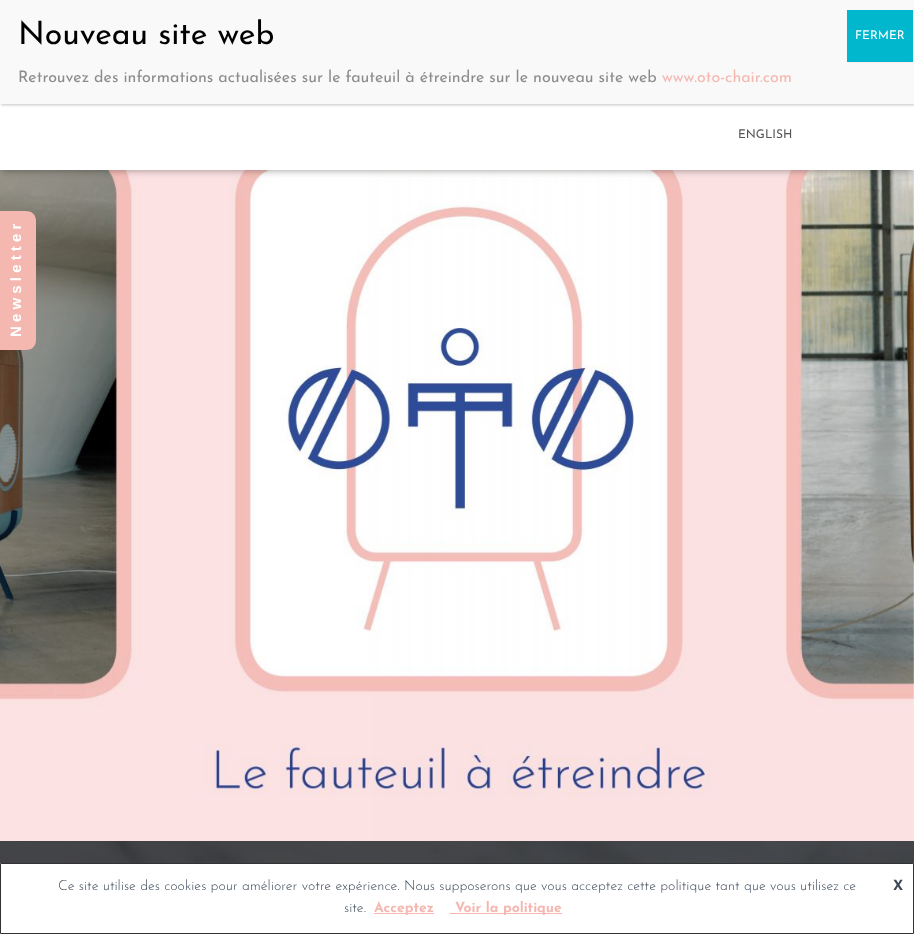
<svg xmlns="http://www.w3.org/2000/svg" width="914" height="934">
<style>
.a{font:32px Josefin Sans;fill:#000}
.b{font:12px Josefin Sans;fill:#fff}
.c{font:16px Josefin Sans;fill:#8c8c8c}
.d{font:16px Josefin Sans;fill:#f4b8b1}
.e{font:12px Josefin Sans;fill:#555}
.f{font:bold 15px Liberation Sans;fill:#fff}
.g{font:300 14px Josefin Sans;fill:#3c4858}
.h{font:bold 14px Josefin Sans;fill:#3c4858}
.i{font:bold 14px Josefin Sans;fill:#f4b8b1}
</style>
<rect width="100%" height="100%" fill="#fff"/>
<image href="1.png" x="0" y="170" width="914" height="671"/>
<path fill="#0000001a" filter="blur(2.5px)" d="M2 6h910v166H2z"/>
<path fill="#0000001f" filter="blur(5px)" d="M0 1h914v170H0z"/>
<path fill="#0000006b" filter="blur(5px)" d="M6 7h902v158H6z"/>
<path fill="#fff" d="M0 104h914v66H0z"/>
<path fill="#0202023b" filter="blur(1.5px)" d="M1 1h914v104H1z"/>
<path fill="#f9f9f9" d="M0 0h914v104H0z"/>
<path fill="#f4b8b133" filter="blur(0.5px)" d="M849 15h62v48H849z"/>
<path fill="#00b7cd" d="M847 10h66v52H847z"/>
<image href="2.png" x="0" y="841" width="914" height="22"/>
<path fill="#f4b8b1" d="M-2 350v-139h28c6 0 10 4 10 10v119c0 6-4 10-10 10z"/>
<path fill="none" stroke="#333" d="M0.5 863.5h913v70H0.5z"/>
<path fill="#f4b8b1" d="M374 913h60v1H374z"/>
<path fill="#f4b8b1" d="M450 913h112v1H450z"/>
<text class="a" x="18" y="44">Nouveau site web</text>
<text class="b" x="855" y="39">FERMER</text>
<text class="c" x="18" y="82">Retrouvez des informations actualisées sur le fauteuil à étreindre sur le nouveau site web</text>
<text class="d" x="662" y="82">www.oto-chair.com</text>
<text class="e" x="738" y="138">ENGLISH</text>
<text class="f" x="21" y="337" transform="rotate(-90 21 337)">N e w s l e t t e r</text>
<text class="g" x="58" y="890">Ce site utilise des cookies pour améliorer votre expérience. Nous supposerons que vous acceptez cette politique tant que vous utilisez ce</text>
<text class="h" x="893" y="890">X</text>
<text class="g" x="344" y="912">site.</text>
<text class="i" x="374" y="912">Acceptez</text>
<text class="i" x="455" y="912">Voir la politique</text>
</svg>
